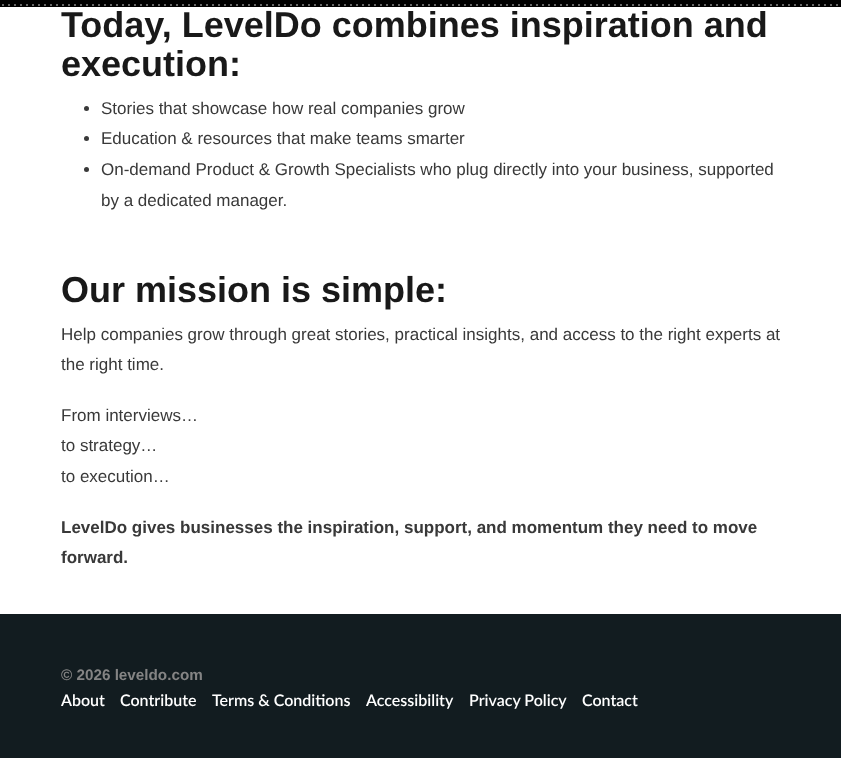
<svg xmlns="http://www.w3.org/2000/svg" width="841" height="758">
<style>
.a{font:bold 36px Liberation Sans;fill:#191919}
.b{font:17px Liberation Sans;fill:#393939}
.c{font:bold 17px Liberation Sans;fill:#393939}
.d{font:bold 15.25px Liberation Sans;fill:#848484}
.e{font:600 16px Lato;fill:#fff}
</style>
<rect width="100%" height="100%" fill="#fff"/>
<path fill="#000" d="M0 0h841v7H0z"/>
<image href="1.png" x="2" y="4" width="836" height="2"/>
<circle fill="#393939" cx="86.5" cy="108.5" r="2.5"/>
<circle fill="#393939" cx="86.5" cy="138.5" r="2.5"/>
<circle fill="#393939" cx="86.5" cy="169.5" r="2.5"/>
<path fill="#121c20" d="M0 614h841v144H0z"/>
<text class="a" x="61" y="37">Today, LevelDo combines inspiration and</text>
<text class="a" x="61" y="76">execution:</text>
<text class="b" x="101" y="114">Stories that showcase how real companies grow</text>
<text class="b" x="101" y="144">Education &amp; resources that make teams smarter</text>
<text class="b" x="101" y="175">On-demand Product &amp; Growth Specialists who plug directly into your business, supported</text>
<text class="b" x="101" y="206">by a dedicated manager.</text>
<text class="a" x="61" y="302">Our mission is simple:</text>
<text class="b" x="61" y="340">Help companies grow through great stories, practical insights, and access to the right experts at</text>
<text class="b" x="61" y="370">the right time.</text>
<text class="b" x="61" y="421">From interviews…</text>
<text class="b" x="61" y="451">to strategy…</text>
<text class="b" x="61" y="482">to execution…</text>
<text class="c" x="61" y="533">LevelDo gives businesses the inspiration, support, and momentum they need to move</text>
<text class="c" x="61" y="563">forward.</text>
<text class="d" x="61" y="680">© 2026 leveldo.com</text>
<text class="e" x="61" y="706">About</text>
<text class="e" x="120" y="706">Contribute</text>
<text class="e" x="212" y="706">Terms &amp; Conditions</text>
<text class="e" x="366" y="706">Accessibility</text>
<text class="e" x="469" y="706">Privacy Policy</text>
<text class="e" x="582" y="706">Contact</text>
</svg>
